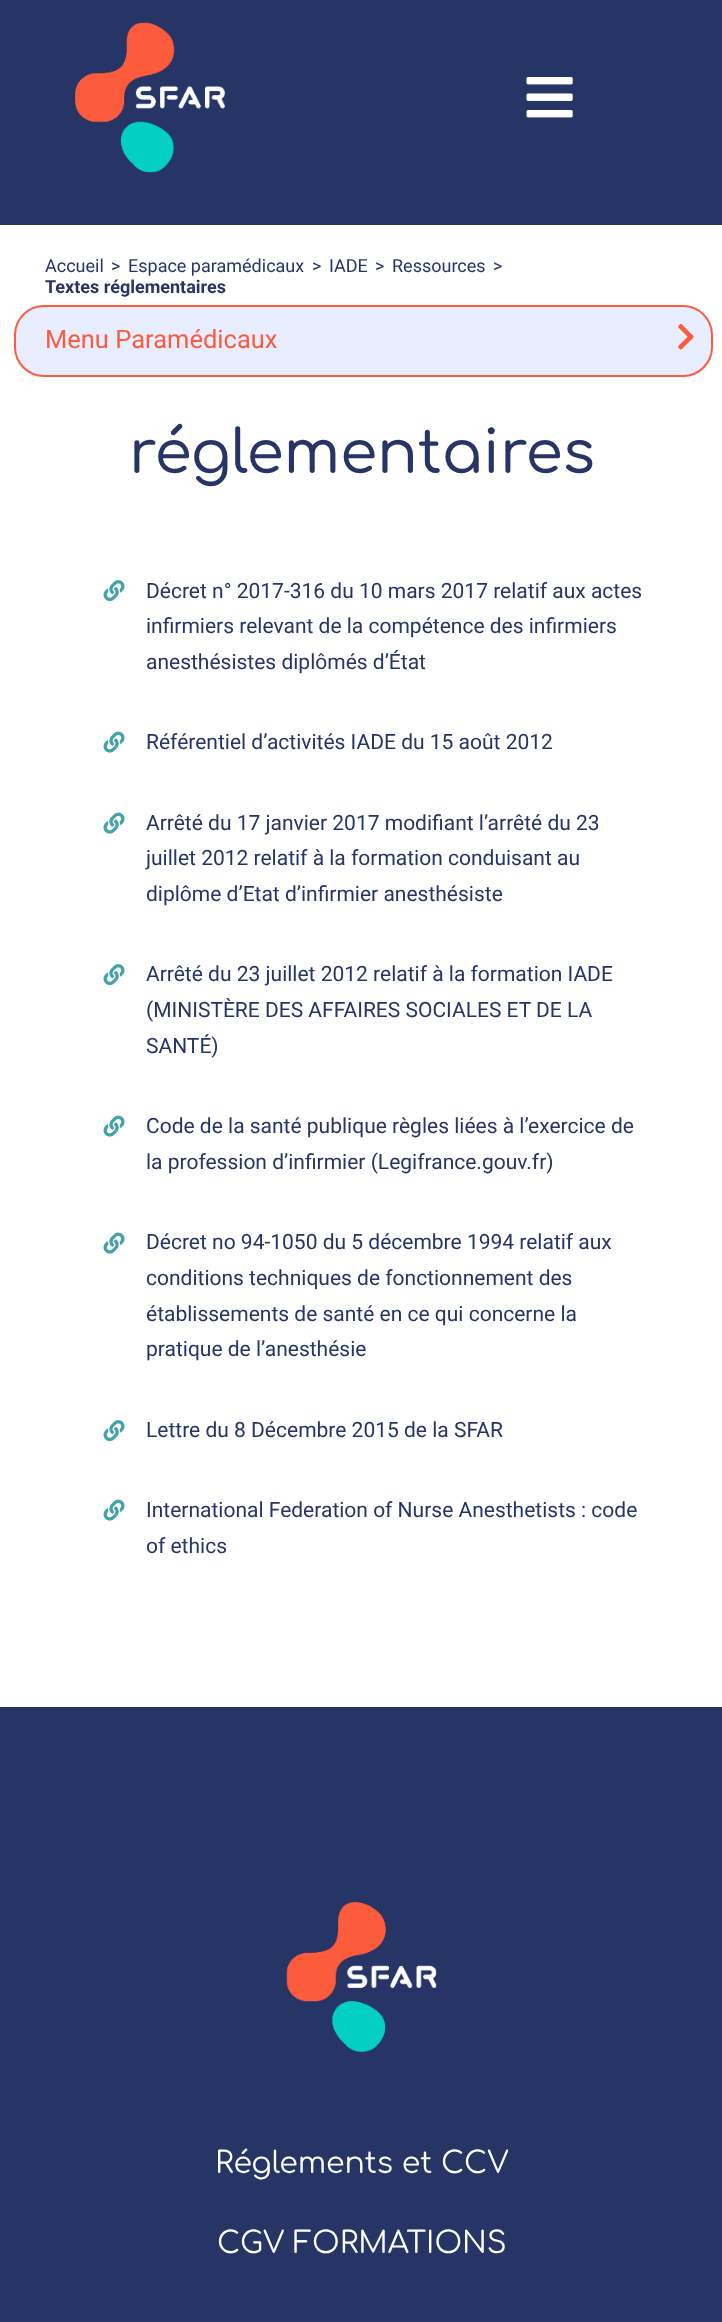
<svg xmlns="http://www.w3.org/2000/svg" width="722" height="2322">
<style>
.a{font:18px Roboto;fill:#273466}
.b{font:bold 18px Roboto;fill:#273466}
.c{font:25.5px Roboto;fill:#fc5c3d}
.d{font:500 60px Comfortaa;fill:#273466}
.e{font:21px Roboto;fill:#273466}
.f{font:30px Comfortaa;fill:#fff}
</style>
<rect width="100%" height="100%" fill="#fff"/>
<path fill="#273466" d="M0 0h722v225H0z"/>
<image href="1.png" x="75" y="22" width="150" height="151"/>
<image href="2.png" x="526" y="77" width="47" height="41"/>
<rect fill="#e8edff" stroke="#fc5c3d" stroke-width="2" x="15" y="306" width="697" height="70" rx="29"/>
<image href="3.png" x="678" y="324" width="16" height="26"/>
<image href="4.png" x="103" y="580" width="22" height="22"/>
<image href="5.png" x="103" y="731" width="22" height="22"/>
<image href="5.png" x="103" y="812" width="22" height="22"/>
<image href="4.png" x="103" y="964" width="22" height="22"/>
<image href="5.png" x="103" y="1115" width="22" height="22"/>
<image href="5.png" x="103" y="1232" width="22" height="22"/>
<image href="4.png" x="103" y="1420" width="22" height="22"/>
<image href="5.png" x="103" y="1499" width="22" height="22"/>
<path fill="#273466" d="M0 1707h722v615H0z"/>
<image href="6.png" x="286" y="1902" width="151" height="150"/>
<text class="a" x="45" y="272">Accueil</text>
<text class="a" x="111" y="272">&gt;</text>
<text class="a" x="128" y="272">Espace paramédicaux</text>
<text class="a" x="312" y="272">&gt;</text>
<text class="a" x="329" y="272">IADE</text>
<text class="a" x="375" y="272">&gt;</text>
<text class="a" x="392" y="272">Ressources</text>
<text class="a" x="493" y="272">&gt;</text>
<text class="b" x="45" y="293">Textes réglementaires</text>
<text class="c" x="45" y="348">Menu Paramédicaux</text>
<text class="d" x="129" y="473">réglementaires</text>
<text class="e" x="146" y="598">Décret n° 2017-316 du 10 mars 2017 relatif aux actes</text>
<text class="e" x="146" y="633">infirmiers relevant de la compétence des infirmiers</text>
<text class="e" x="146" y="669">anesthésistes diplômés d’État</text>
<text class="e" x="146" y="749">Référentiel d’activités IADE du 15 août 2012</text>
<text class="e" x="146" y="830">Arrêté du 17 janvier 2017 modifiant l’arrêté du 23</text>
<text class="e" x="146" y="865">juillet 2012 relatif à la formation conduisant au</text>
<text class="e" x="146" y="901">diplôme d’Etat d’infirmier anesthésiste</text>
<text class="e" x="146" y="981">Arrêté du 23 juillet 2012 relatif à la formation IADE</text>
<text class="e" x="146" y="1017">(MINISTÈRE DES AFFAIRES SOCIALES ET DE LA</text>
<text class="e" x="146" y="1053">SANTÉ)</text>
<text class="e" x="146" y="1133">Code de la santé publique règles liées à l’exercice de</text>
<text class="e" x="146" y="1169">la profession d’infirmier (Legifrance.gouv.fr)</text>
<text class="e" x="146" y="1249">Décret no 94-1050 du 5 décembre 1994 relatif aux</text>
<text class="e" x="146" y="1285">conditions techniques de fonctionnement des</text>
<text class="e" x="146" y="1321">établissements de santé en ce qui concerne la</text>
<text class="e" x="146" y="1356">pratique de l’anesthésie</text>
<text class="e" x="146" y="1437">Lettre du 8 Décembre 2015 de la SFAR</text>
<text class="e" x="146" y="1517">International Federation of Nurse Anesthetists : code</text>
<text class="e" x="146" y="1553">of ethics</text>
<text class="f" x="215" y="2173">Réglements et CCV</text>
<text class="f" x="217" y="2253">CGV FORMATIONS</text>
</svg>
